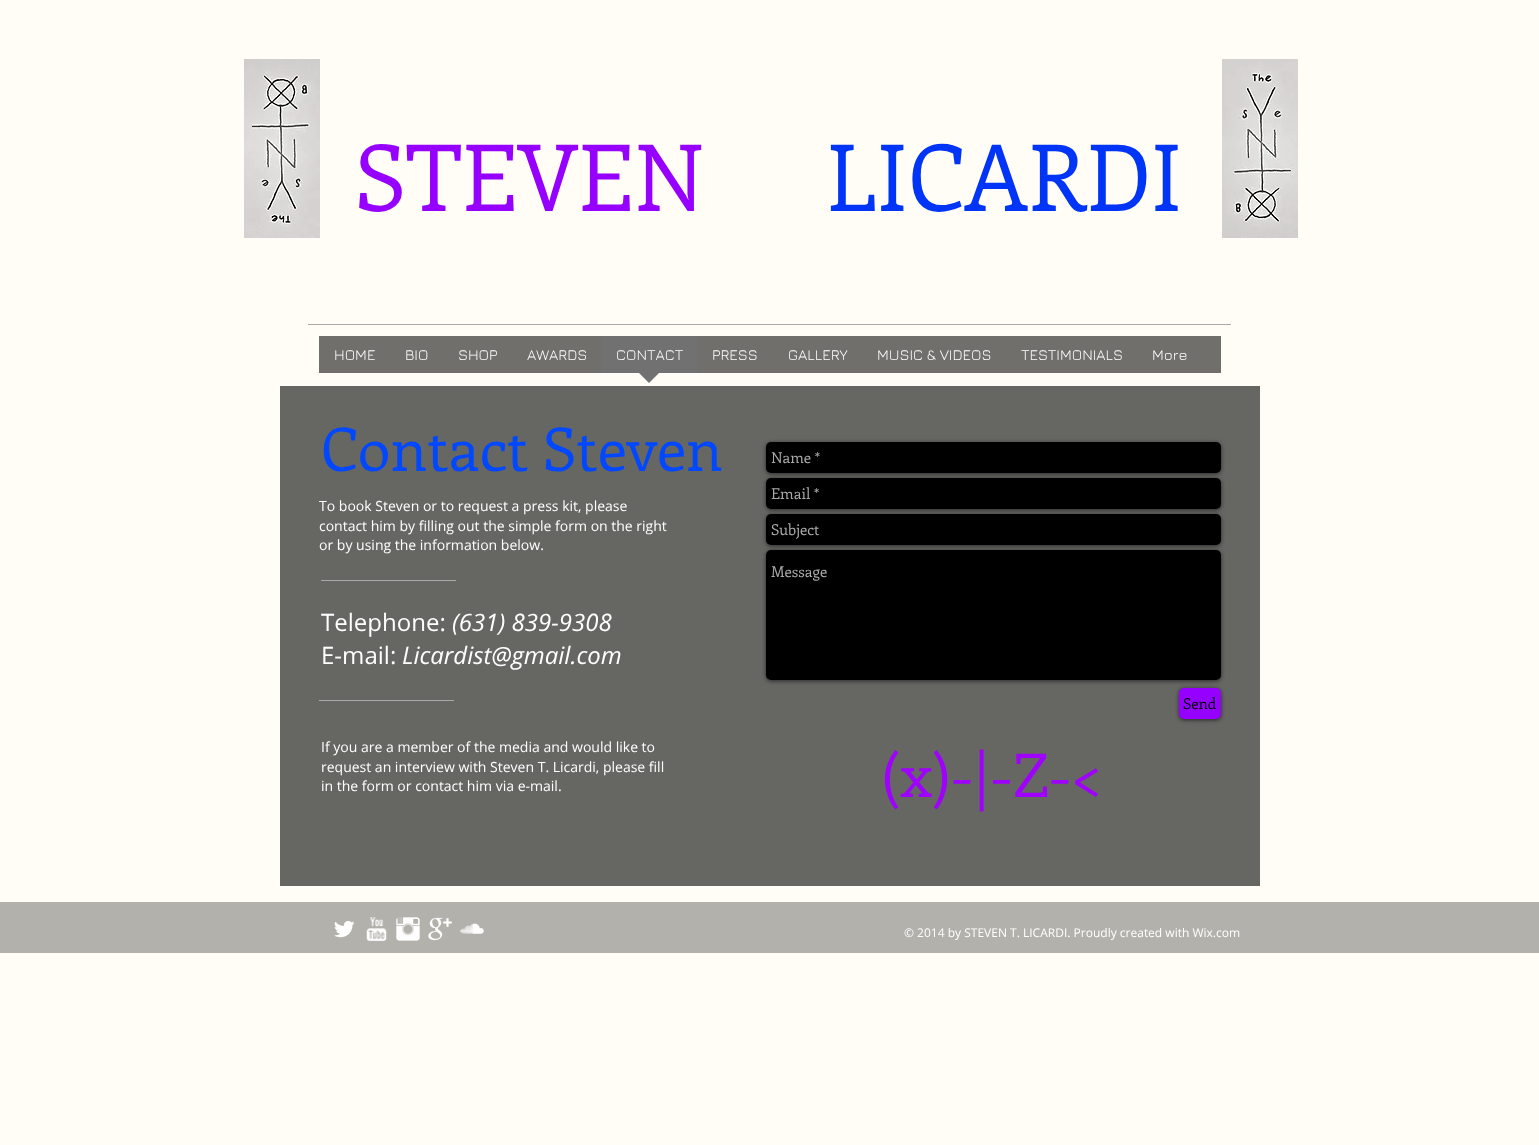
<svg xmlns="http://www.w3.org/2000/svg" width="1539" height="1145">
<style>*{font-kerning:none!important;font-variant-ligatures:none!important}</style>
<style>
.a{font:92px Enriqueta;fill:#9600ff}
.b{font:92px Enriqueta;fill:#0034f6}
.c{font:15px Jura;fill:#fff}
.d{font:60px Enriqueta;fill:#0048ff}
.e{font:15px Enriqueta;fill:#a9a9a9}
.f{font:15px Enriqueta;fill:#000}
.g{font:14px Open Sans;fill:#fff}
.h{font:24px Open Sans;fill:#fff}
.i{font:italic 24px Open Sans;fill:#fff}
.j{font:60px Enriqueta;fill:#a000ff}
.k{font:12px Open Sans;fill:#fff}
</style>
<rect width="100%" height="100%" fill="#fffdf6"/>
<image href="1.png" x="244" y="59" width="76" height="179"/>
<image href="2.png" x="1222" y="59" width="76" height="179"/>
<path fill="#aaa8a8" d="M308 324h923v1H308z"/>
<path fill="#706f6c" d="M319 336h902v37H319z"/>
<path fill="#fff" d="M319 373h902v1H319z"/>
<path fill="#717171" d="M601 336h96v37H601z"/>
<path fill="#fff" d="M638 373h22l-11 11z"/>
<path fill="#717171" d="M639 373h20l-10 10z"/>
<path fill="#666663" d="M280 386h980v500H280z"/>
<rect fill="#00000099" filter="blur(2px)" x="766" y="443" width="455" height="31" rx="5"/>
<rect fill="#000" x="766" y="442" width="455" height="31" rx="5"/>
<rect fill="#00000099" filter="blur(2px)" x="766" y="479" width="455" height="31" rx="5"/>
<rect fill="#000" x="766" y="478" width="455" height="31" rx="5"/>
<rect fill="#00000099" filter="blur(2px)" x="766" y="515" width="455" height="31" rx="5"/>
<rect fill="#000" x="766" y="514" width="455" height="31" rx="5"/>
<rect fill="#00000099" filter="blur(2px)" x="766" y="551" width="455" height="130" rx="5"/>
<rect fill="#000" x="766" y="550" width="455" height="130" rx="5"/>
<rect fill="#00000099" filter="blur(2px)" x="1179" y="689" width="42" height="31" rx="5"/>
<rect fill="#9600ff" x="1179" y="688" width="42" height="31" rx="5"/>
<path fill="#aaa8a8" d="M321 580h135v1H321z"/>
<path fill="#aaa8a8" d="M319 700h135v1H319z"/>
<path fill="#b3b1ac" d="M0 902h1539v51H0z"/>
<image href="3.png" x="334" y="920" width="21" height="18"/>
<image href="4.png" x="366" y="917" width="21" height="24"/>
<image href="5.png" x="396" y="917" width="24" height="24"/>
<image href="6.png" x="428" y="917" width="24" height="24"/>
<image href="7.png" x="460" y="923" width="24" height="11"/>
<text class="a" x="355" y="211">STEVEN</text>
<text class="b" x="826" y="211">LICARDI</text>
<text class="c" x="334" y="360">HOME</text>
<text class="c" x="405" y="360">BIO</text>
<text class="c" x="458" y="360">SHOP</text>
<text class="c" x="527" y="360">AWARDS</text>
<text class="c" x="616" y="360">CONTACT</text>
<text class="c" x="712" y="360">PRESS</text>
<text class="c" x="788" y="360">GALLERY</text>
<text class="c" x="877" y="360">MUSIC &amp; VIDEOS</text>
<text class="c" x="1021" y="360">TESTIMONIALS</text>
<text class="c" x="1152" y="360">More</text>
<text class="d" x="321" y="471">Contact Steven</text>
<text class="e" x="771" y="463">Name *</text>
<text class="e" x="771" y="499">Email *</text>
<text class="e" x="771" y="535">Subject</text>
<text class="e" x="771" y="577">Message</text>
<text class="f" x="1183" y="709">Send</text>
<text class="g" x="319" y="511">To book Steven or to request a press kit, please</text>
<text class="g" x="319" y="531">contact him by filling out the simple form on the right</text>
<text class="g" x="319" y="550">or by using the information below.</text>
<text class="h" x="321" y="631">Telephone:</text>
<text class="i" x="452" y="631">(631) 839-9308</text>
<text class="h" x="321" y="664">E-mail:</text>
<text class="i" x="402" y="664">Licardist@gmail.com</text>
<text class="g" x="321" y="752">If you are a member of the media and would like to</text>
<text class="g" x="321" y="772">request an interview with Steven T. Licardi, please fill</text>
<text class="g" x="321" y="791">in the form or contact him via e-mail.</text>
<text class="j" x="881" y="797">(x)-|-Z-&lt;</text>
<text class="k" x="904" y="937">© 2014 by STEVEN T. LICARDI. Proudly created with Wix.com</text>
</svg>
